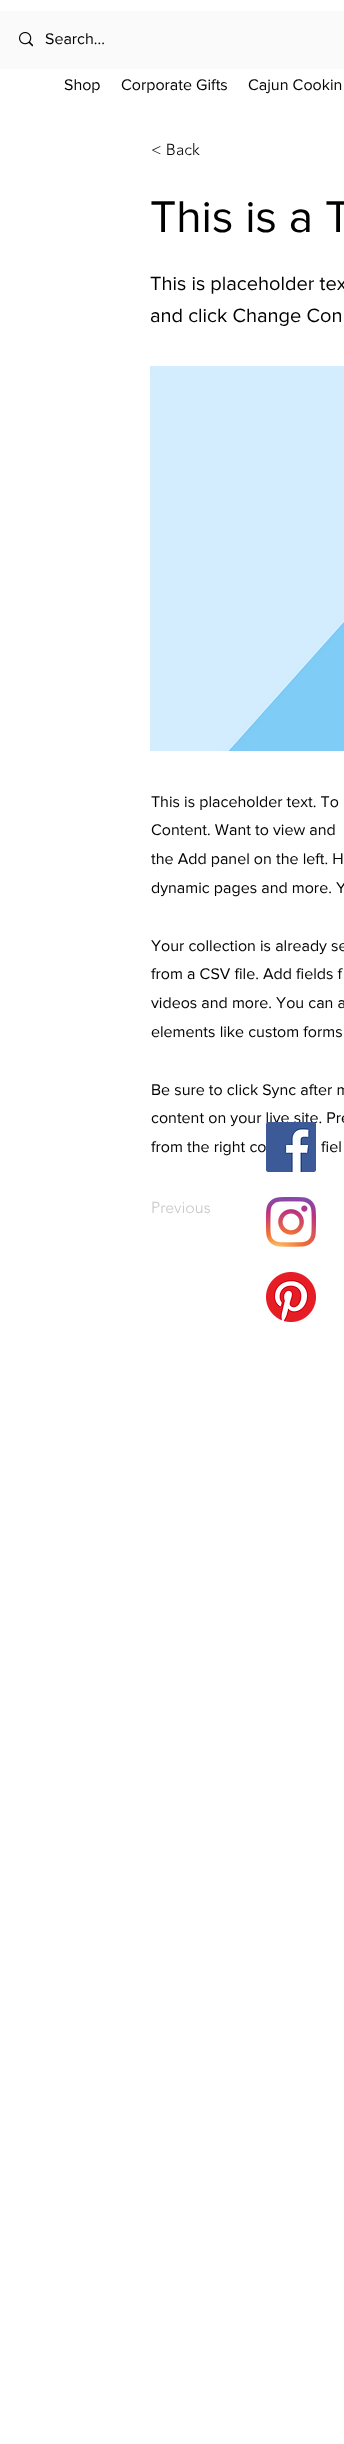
<svg xmlns="http://www.w3.org/2000/svg" width="344" height="2444">
<style>
.a{font:16px 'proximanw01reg';fill:#000}
.b{font:300 16px 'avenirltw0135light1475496';fill:#000}
.c{font:46px 'proximanw01reg';fill:#000}
.d{font:20px 'proximanw01reg';fill:#000}
.e{font:300 16px 'avenirltw0135light1475496';fill:#c7c7c7}
</style>
<rect width="100%" height="100%" fill="#fff"/>
<path fill="#fafafa" d="M0 11h344v58H0z"/>
<image href="1.png" x="19" y="32" width="14" height="15"/>
<image href="2.png" x="150" y="366" width="194" height="385"/>
<image href="4.png" x="266" y="1197" width="50" height="50"/>
<image href="5.png" x="266" y="1272" width="50" height="50"/>
<text class="a" x="45" y="44">Search...</text>
<text class="a" x="64" y="90">Shop</text>
<text class="a" x="121" y="90">Corporate Gifts</text>
<text class="a" x="248" y="90">Cajun Cookin</text>
<text class="b" x="151" y="155">&lt; Back</text>
<text class="c" x="150" y="232">This is a T</text>
<text class="d" x="150" y="290">This is placeholder tex</text>
<text class="d" x="150" y="322">and click Change Con</text>
<text class="a" x="151" y="807">This is placeholder text. To</text>
<text class="a" x="151" y="835">Content. Want to view and</text>
<text class="a" x="151" y="864">the Add panel on the left. H</text>
<text class="a" x="151" y="893">dynamic pages and more. Y</text>
<text class="a" x="151" y="951">Your collection is already se</text>
<text class="a" x="151" y="979">from a CSV file. Add fields f</text>
<text class="a" x="151" y="1008">videos and more. You can a</text>
<text class="a" x="151" y="1037">elements like custom forms</text>
<text class="a" x="151" y="1095">Be sure to click Sync after m</text>
<text class="a" x="151" y="1123">content on your live site. Pre</text>
<text class="a" x="151" y="1152">from the right co</text>
<text class="a" x="321" y="1152">fiel</text>
<text class="e" x="151" y="1213">Previous</text>
<image href="3.png" x="266" y="1122" width="50" height="50"/>
</svg>
